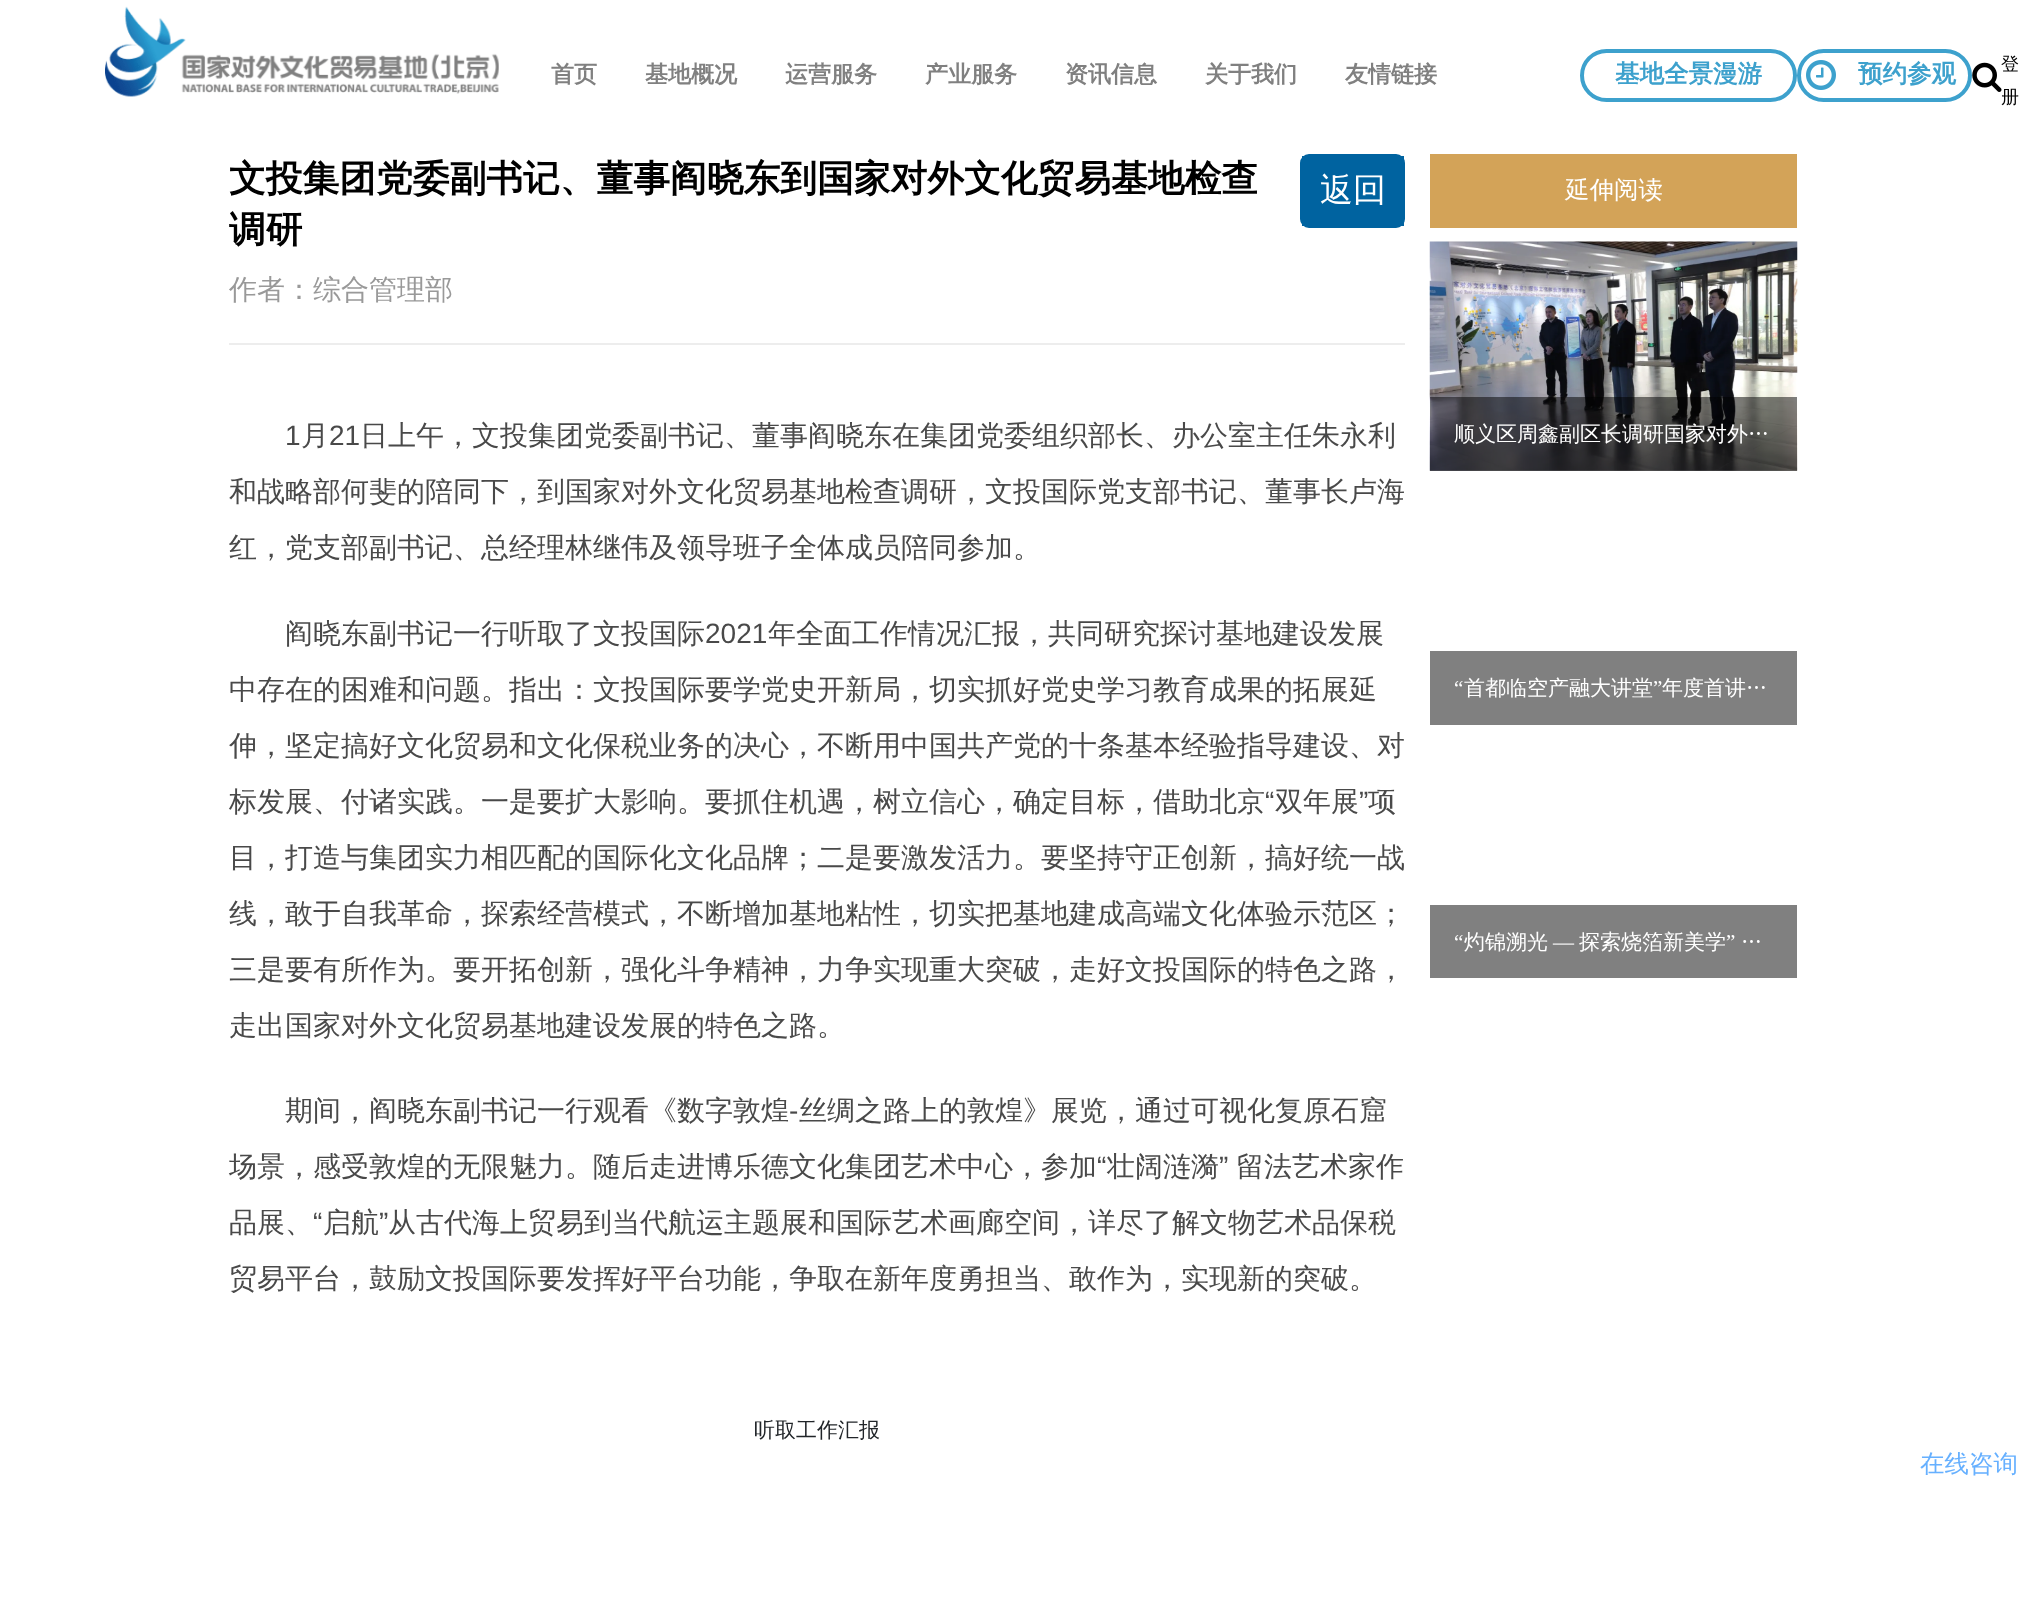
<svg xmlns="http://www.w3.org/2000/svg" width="2025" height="1617">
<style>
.a{font:bold 23px WenQuanYi Zen Hei;fill:#808080}
.b{font:bold 24.5px WenQuanYi Zen Hei;fill:#3da1cd}
.c{font:500 18px WenQuanYi Zen Hei;fill:#000}
.d{font:bold 36.75px WenQuanYi Zen Hei;fill:#000}
.e{font:500 28px WenQuanYi Zen Hei;fill:#999}
.f{font:500 33px WenQuanYi Zen Hei;fill:#fff}
.g{font:28px Liberation Sans;fill:#494949}
.h{font:500 28px WenQuanYi Zen Hei;fill:#494949}
.i{font:500 21px WenQuanYi Zen Hei;fill:#212529}
.j{font:500 24.5px WenQuanYi Zen Hei;fill:#fff}
.k{font:500 21px WenQuanYi Zen Hei;fill:#fff}
.l{font:21px Liberation Serif;fill:#fff}
.m{font:500 24.5px WenQuanYi Zen Hei;fill:#66b0ff}
</style>
<rect width="100%" height="100%" fill="#fff"/>
<image href="1.png" x="105" y="6" width="394" height="91"/>
<rect fill="none" stroke="#3da1cd" stroke-width="4" x="1582" y="51" width="213" height="49" rx="24.5"/>
<rect fill="none" stroke="#3da1cd" stroke-width="4" x="1799" y="51" width="171" height="49" rx="24.5"/>
<image href="2.png" x="1806" y="60" width="30" height="30"/>
<image href="3.png" x="1972" y="62" width="30" height="30"/>
<rect fill="none" stroke="#0063a0" stroke-width="2" x="1301" y="155" width="103" height="72" rx="8"/>
<path fill="#0063a0" d="M1302 156h102v70H1302z"/>
<path fill="#ededed" d="M229 343h1176v2H229z"/>
<path fill="#d3a358" d="M1430 154h367v74H1430z"/>
<image href="4.png" x="1429" y="241" width="369" height="230"/>
<path fill="#00000080" d="M1430 397h367v74H1430z"/>
<path fill="#808080" d="M1430 651h367v74H1430z"/>
<path fill="#808080" d="M1430 905h367v73H1430z"/>
<text class="a" x="551" y="82">首页</text>
<text class="a" x="645" y="82">基地概况</text>
<text class="a" x="785" y="82">运营服务</text>
<text class="a" x="925" y="82">产业服务</text>
<text class="a" x="1065" y="82">资讯信息</text>
<text class="a" x="1205" y="82">关于我们</text>
<text class="a" x="1345" y="82">友情链接</text>
<text class="b" x="1615" y="82">基地全景漫游</text>
<text class="b" x="1858" y="82">预约参观</text>
<text class="c" x="2001" y="70">登</text>
<text class="c" x="2001" y="103">册</text>
<text class="d" x="229" y="191">文投集团党委副书记、董事阎晓东到国家对外文化贸易基地检查</text>
<text class="d" x="229" y="242">调研</text>
<text class="e" x="229" y="299">作者：综合管理部</text>
<text class="f" x="1320" y="201">返回</text>
<text class="g" x="285" y="445">1</text>
<text class="h" x="301" y="445">月</text>
<text class="g" x="329" y="445">21</text>
<text class="h" x="360" y="445">日上午，文投集团党委副书记、董事阎晓东在集团党委组织部长、办公室主任朱永利</text>
<text class="h" x="229" y="501">和战略部何斐的陪同下，到国家对外文化贸易基地检查调研，文投国际党支部书记、董事长卢海</text>
<text class="h" x="229" y="557">红，党支部副书记、总经理林继伟及领导班子全体成员陪同参加。</text>
<text class="h" x="285" y="643">阎晓东副书记一行听取了文投国际</text>
<text class="g" x="705" y="643">2021</text>
<text class="h" x="768" y="643">年全面工作情况汇报，共同研究探讨基地建设发展</text>
<text class="h" x="229" y="699">中存在的困难和问题。指出：文投国际要学党史开新局，切实抓好党史学习教育成果的拓展延</text>
<text class="h" x="229" y="755">伸，坚定搞好文化贸易和文化保税业务的决心，不断用中国共产党的十条基本经验指导建设、对</text>
<text class="h" x="229" y="811">标发展、付诸实践。一是要扩大影响。要抓住机遇，树立信心，确定目标，借助北京</text>
<text class="g" x="1265" y="811">“</text>
<text class="h" x="1275" y="811">双年展</text>
<text class="g" x="1359" y="811">”</text>
<text class="h" x="1368" y="811">项</text>
<text class="h" x="229" y="867">目，打造与集团实力相匹配的国际化文化品牌；二是要激发活力。要坚持守正创新，搞好统一战</text>
<text class="h" x="229" y="923">线，敢于自我革命，探索经营模式，不断增加基地粘性，切实把基地建成高端文化体验示范区；</text>
<text class="h" x="229" y="979">三是要有所作为。要开拓创新，强化斗争精神，力争实现重大突破，走好文投国际的特色之路，</text>
<text class="h" x="229" y="1035">走出国家对外文化贸易基地建设发展的特色之路。</text>
<text class="h" x="285" y="1120">期间，阎晓东副书记一行观看《数字敦煌</text>
<text class="g" x="789" y="1120">-</text>
<text class="h" x="799" y="1120">丝绸之路上的敦煌》展览，通过可视化复原石窟</text>
<text class="h" x="229" y="1176">场景，感受敦煌的无限魅力。随后走进博乐德文化集团艺术中心，参加</text>
<text class="g" x="1097" y="1176">“</text>
<text class="h" x="1107" y="1176">壮阔涟漪</text>
<text class="g" x="1219" y="1176">”</text>
<text class="h" x="1236" y="1176">留法艺术家作</text>
<text class="h" x="229" y="1232">品展、</text>
<text class="g" x="313" y="1232">“</text>
<text class="h" x="323" y="1232">启航</text>
<text class="g" x="379" y="1232">”</text>
<text class="h" x="388" y="1232">从古代海上贸易到当代航运主题展和国际艺术画廊空间，详尽了解文物艺术品保税</text>
<text class="h" x="229" y="1288">贸易平台，鼓励文投国际要发挥好平台功能，争取在新年度勇担当、敢作为，实现新的突破。</text>
<text class="i" x="754" y="1437">听取工作汇报</text>
<text class="j" x="1565" y="198">延伸阅读</text>
<text class="k" x="1454" y="441">顺义区周鑫副区长调研国家对外…</text>
<text class="l" x="1454" y="695">“</text>
<text class="k" x="1464" y="695">首都临空产融大讲堂</text>
<text class="l" x="1653" y="695">”</text>
<text class="k" x="1662" y="695">年度首讲…</text>
<text class="l" x="1454" y="949">“</text>
<text class="k" x="1464" y="949">灼锦溯光</text>
<text class="k" x="1579" y="949">探索烧箔新美学</text>
<text class="l" x="1726" y="949">”</text>
<text class="k" x="1741" y="949">…</text>
<text class="l" x="1553" y="949">—</text>
<text class="m" x="1920" y="1472">在线咨询</text>
</svg>
